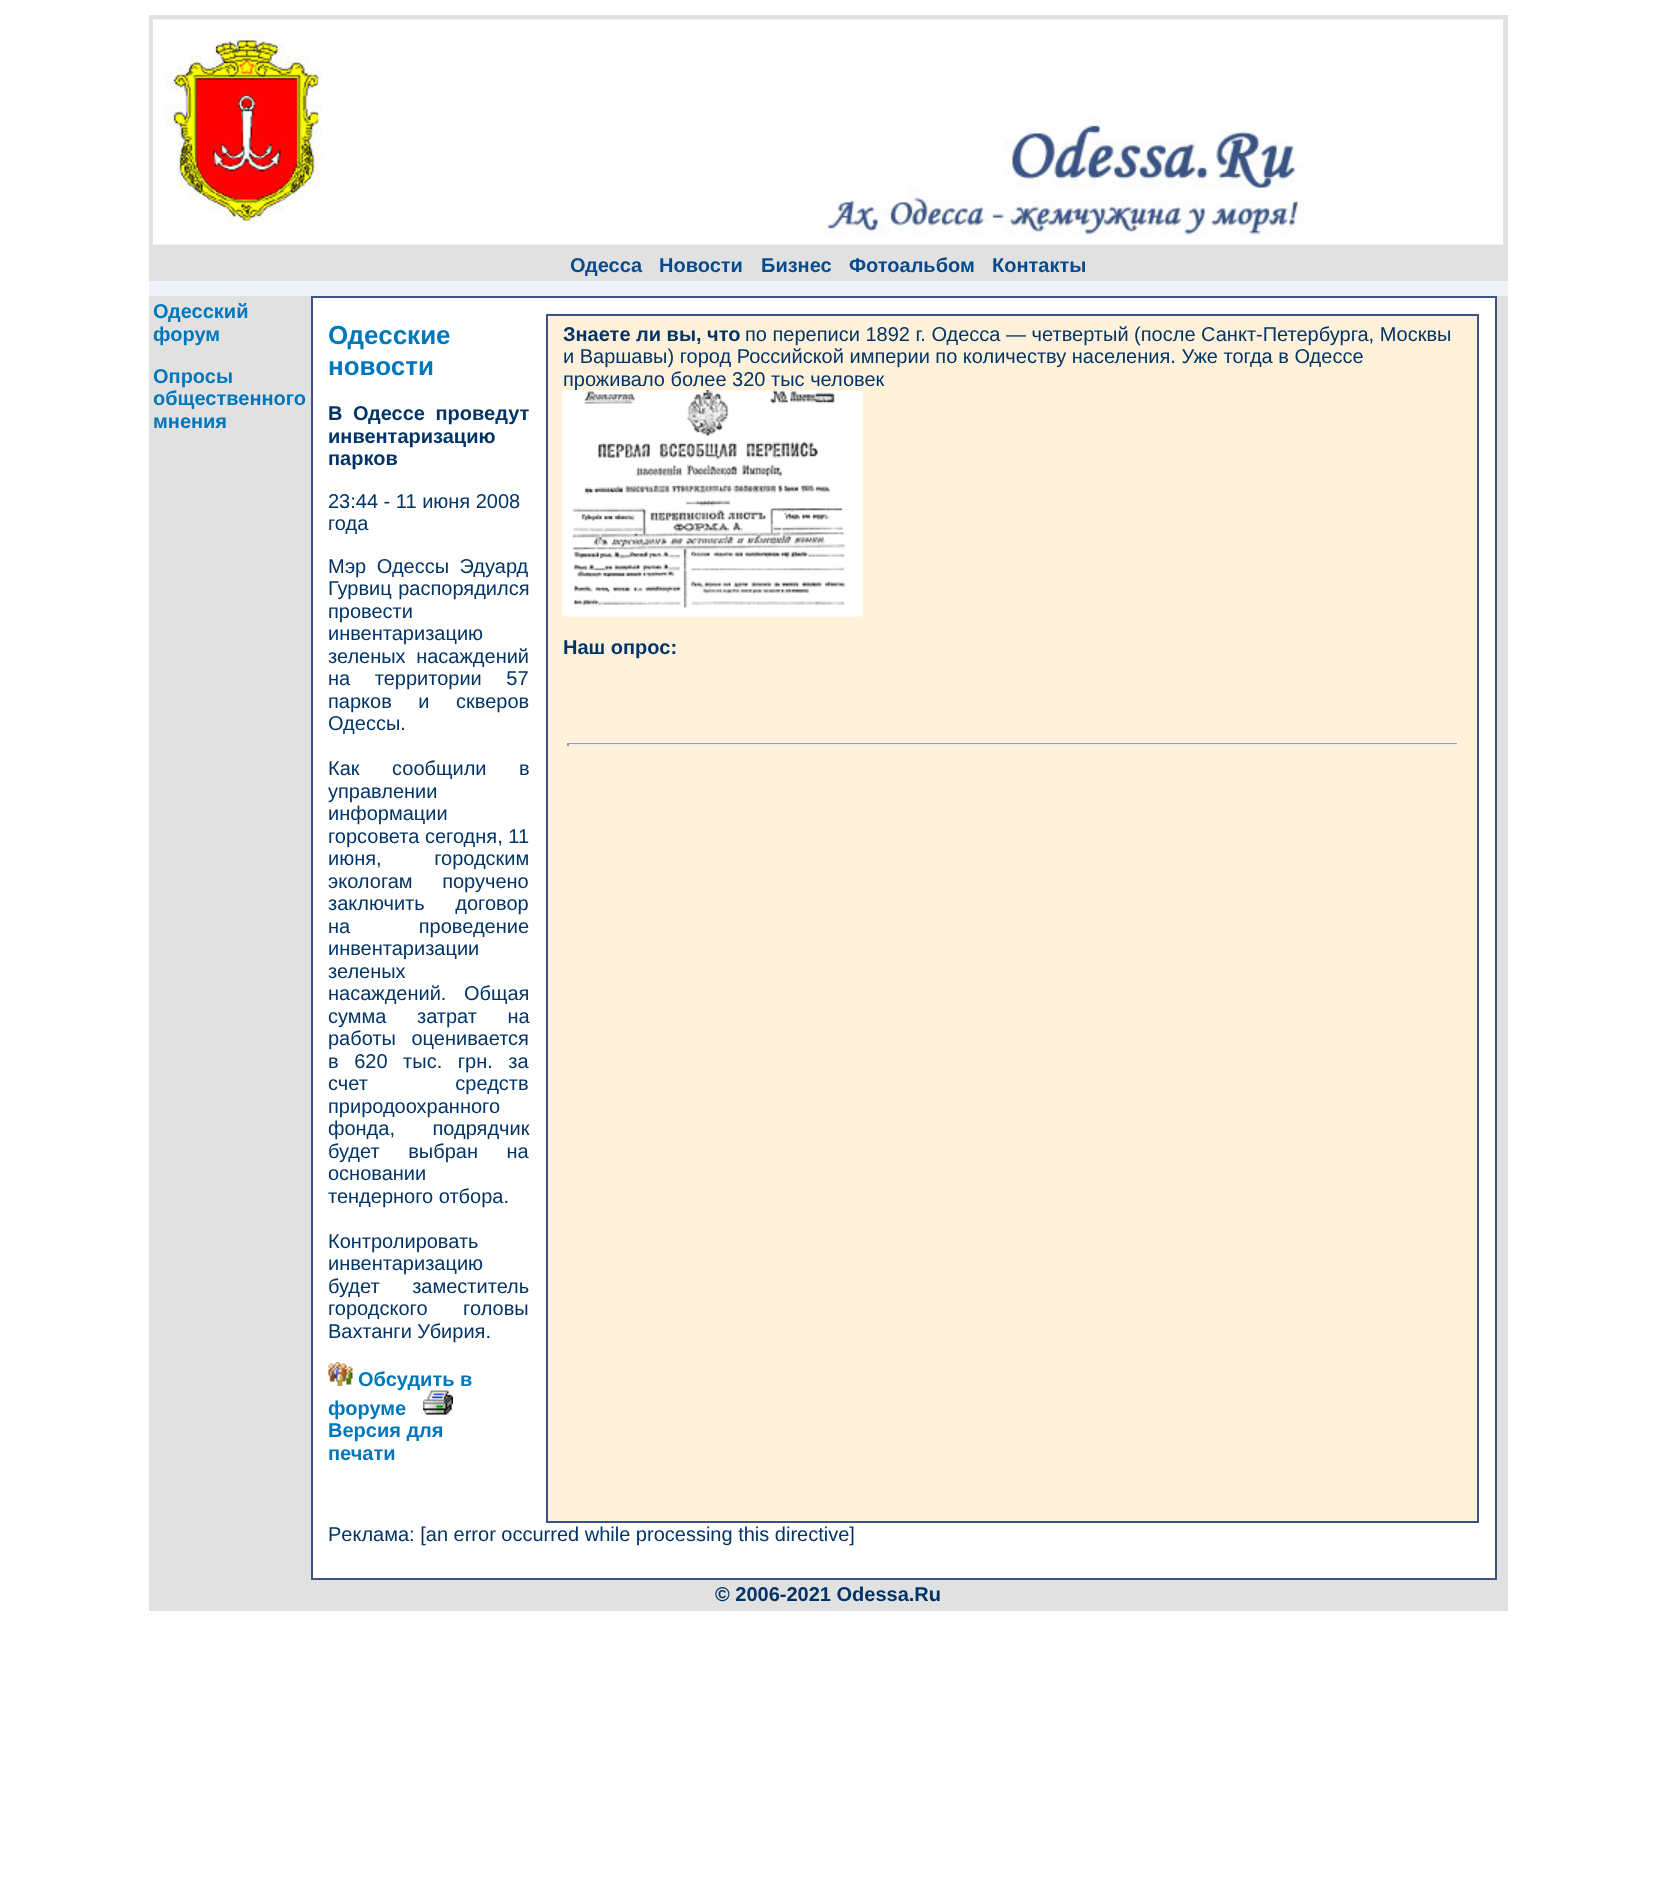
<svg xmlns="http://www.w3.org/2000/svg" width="1656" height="1880">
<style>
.a{font:bold 20px Liberation Sans;fill:#074a8c}
.b{font:bold 20px Liberation Sans;fill:#07b}
.c{font:bold 26px Liberation Sans;fill:#07b}
.d{font:bold 20px Liberation Sans;fill:#036}
.e{font:20px Liberation Sans;fill:#036}
</style>
<rect width="100%" height="100%" fill="#fff"/>
<path fill="#e1e1e2" d="M149 15h1359v266H149z"/>
<image href="1.png" x="153" y="19" width="1350" height="226"/>
<path fill="#eff3f9" d="M149 281h1359v15H149z"/>
<path fill="#e1e1e2" d="M149 296h162v1284H149z"/>
<path fill="none" stroke="#3a5485" stroke-width="2" d="M312 297h1184v1282H312z"/>
<image href="2.png" x="328" y="1362" width="25" height="24"/>
<path fill="#fff1da" stroke="#3a5485" stroke-width="2" d="M547 315h931v1207H547z"/>
<path fill="#9f9f9f" d="M567 743h891v1H567z"/>
<path fill="#eee" d="M1457 743h2v3H1457z"/>
<path fill="#eee" d="M567 744h891v2H567z"/>
<path fill="#9f9f9f" d="M567 743h2v3H567z"/>
<path fill="#e1e1e2" d="M1497 296h11v1284H1497z"/>
<path fill="#e1e1e2" d="M149 1580h1359v31H149z"/>
<text class="a" x="570" y="272">Одесса</text>
<text class="a" x="659" y="272">Новости</text>
<text class="a" x="761" y="272">Бизнес</text>
<text class="a" x="849" y="272">Фотоальбом</text>
<text class="a" x="992" y="272">Контакты</text>
<text class="b" x="153" y="318">Одесский</text>
<text class="b" x="153" y="341">форум</text>
<text class="b" x="153" y="383">Опросы</text>
<text class="b" x="153" y="405">общественного</text>
<text class="b" x="153" y="428">мнения</text>
<text class="c" x="328" y="344">Одесские</text>
<text class="c" x="328" y="375">новости</text>
<text class="d" x="328" y="420" word-spacing="5">В Одессе проведут</text>
<text class="d" x="328" y="443">инвентаризацию</text>
<text class="d" x="328" y="465">парков</text>
<text class="e" x="328" y="508">23:44 - 11 июня 2008</text>
<text class="e" x="328" y="530">года</text>
<text class="e" x="328" y="573" word-spacing="5">Мэр Одессы Эдуард</text>
<text class="e" x="328" y="595" word-spacing="1">Гурвиц распорядился</text>
<text class="e" x="328" y="618">провести</text>
<text class="e" x="328" y="640">инвентаризацию</text>
<text class="e" x="328" y="663" word-spacing="5">зеленых насаждений</text>
<text class="e" x="328" y="685" word-spacing="19">на территории 57</text>
<text class="e" x="328" y="708" word-spacing="21">парков и скверов</text>
<text class="e" x="328" y="730">Одессы.</text>
<text class="e" x="328" y="775" word-spacing="27">Как сообщили в</text>
<text class="e" x="328" y="798">управлении</text>
<text class="e" x="328" y="820">информации</text>
<text class="e" x="328" y="843">горсовета сегодня, 11</text>
<text class="e" x="328" y="865" word-spacing="47">июня, городским</text>
<text class="e" x="328" y="888" word-spacing="24">экологам поручено</text>
<text class="e" x="328" y="910" word-spacing="25">заключить договор</text>
<text class="e" x="328" y="933" word-spacing="63">на проведение</text>
<text class="e" x="328" y="955">инвентаризации</text>
<text class="e" x="328" y="978">зеленых</text>
<text class="e" x="328" y="1000" word-spacing="12">насаждений. Общая</text>
<text class="e" x="328" y="1023" word-spacing="25">сумма затрат на</text>
<text class="e" x="328" y="1045" word-spacing="10">работы оценивается</text>
<text class="e" x="328" y="1068" word-spacing="10">в 620 тыс. грн. за</text>
<text class="e" x="328" y="1090" word-spacing="82">счет средств</text>
<text class="e" x="328" y="1113">природоохранного</text>
<text class="e" x="328" y="1135" word-spacing="32">фонда, подрядчик</text>
<text class="e" x="328" y="1158" word-spacing="23">будет выбран на</text>
<text class="e" x="328" y="1180">основании</text>
<text class="e" x="328" y="1203">тендерного отбора.</text>
<text class="e" x="328" y="1248">Контролировать</text>
<text class="e" x="328" y="1270">инвентаризацию</text>
<text class="e" x="328" y="1293" word-spacing="27">будет заместитель</text>
<text class="e" x="328" y="1315" word-spacing="30">городского головы</text>
<text class="e" x="328" y="1338">Вахтанги Убирия.</text>
<text class="b" x="358" y="1386">Обсудить в</text>
<text class="b" x="328" y="1415">форуме</text>
<image href="3.png" x="423" y="1390" width="30" height="25"/>
<text class="b" x="328" y="1437">Версия для</text>
<text class="b" x="328" y="1460">печати</text>
<text class="d" x="563" y="341">Знаете ли вы, что</text>
<text class="e" x="745" y="341">по переписи 1892 г. Одесса — четвертый (после Санкт-Петербурга, Москвы</text>
<text class="e" x="563" y="363">и Варшавы) город Российской империи по количеству населения. Уже тогда в Одессе</text>
<text class="e" x="563" y="386">проживало более 320 тыс человек</text>
<image href="4.png" x="562" y="390" width="301" height="227"/>
<text class="d" x="563" y="654">Наш опрос:</text>
<text class="e" x="328" y="1541">Рeклaмa: [an error occurred while processing this directive]</text>
<text class="d" x="715" y="1601">© 2006-2021 Odessa.Ru</text>
</svg>
